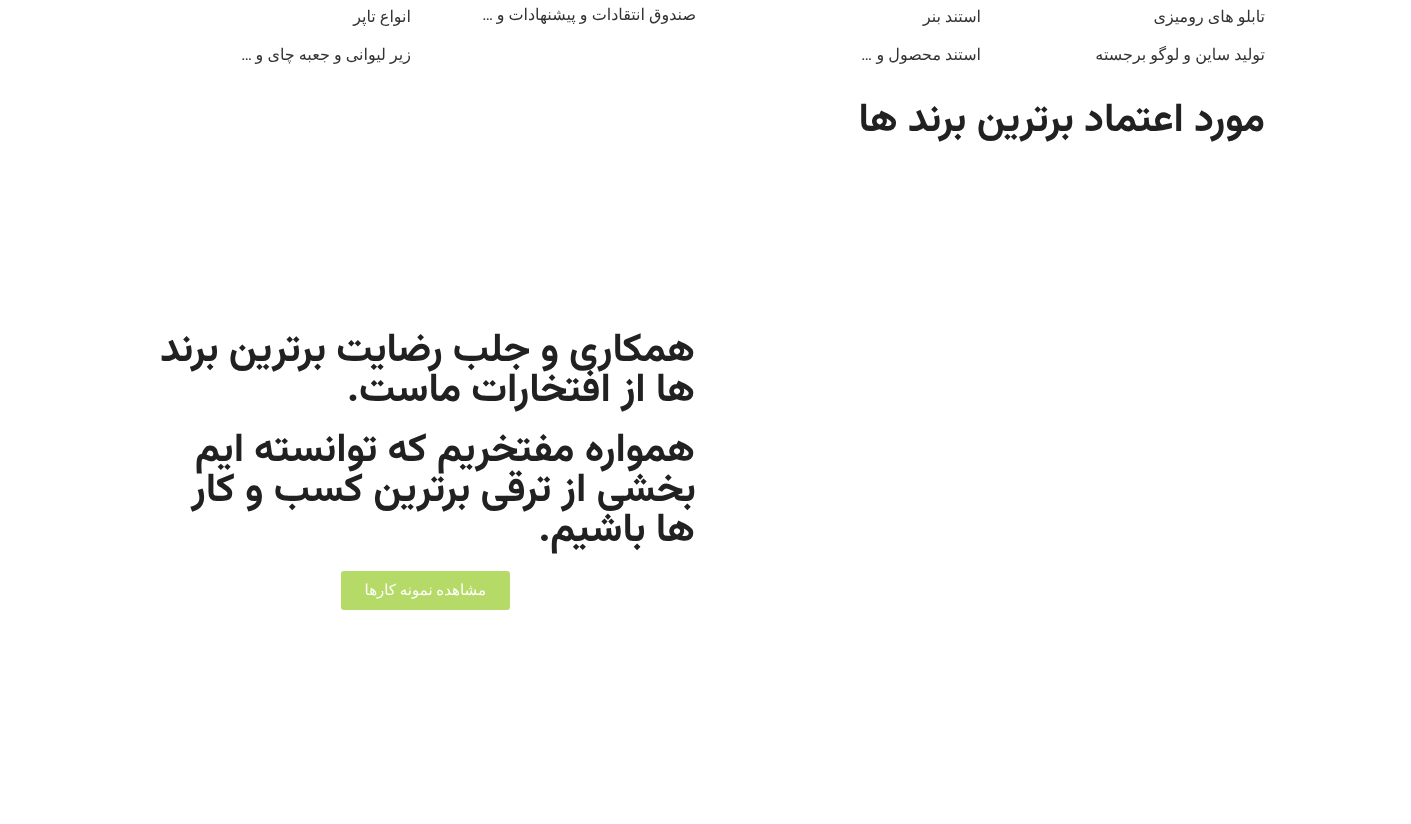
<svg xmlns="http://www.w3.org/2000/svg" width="1411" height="824">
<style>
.a{font:16px DejaVu Sans;direction:rtl;fill:#333}
.b{font:16px Roboto;direction:rtl;fill:#333}
.c{font:bold 40px Vazirmatn;direction:rtl;fill:#212121}
.d{font:15px DejaVu Sans;direction:rtl;fill:#fff}
</style>
<rect width="100%" height="100%" fill="#fff"/>
<rect fill="#b6da68" x="341" y="571" width="169" height="39" rx="3"/>
<text class="a" x="1265" y="22" word-spacing="-1">تابلو های رومیزی</text>
<text class="a" x="1265" y="60" word-spacing="-1">تولید ساین و لوگو برجسته</text>
<text class="a" x="981" y="22" word-spacing="-1">استند بنر</text>
<text class="a" x="981" y="60" word-spacing="-1">استند محصول و</text>
<text class="b" x="872" y="60">…</text>
<text class="a" x="696" y="20" word-spacing="-1">صندوق انتقادات و پیشنهادات و</text>
<text class="b" x="493" y="20">…</text>
<text class="a" x="411" y="22" word-spacing="-1">انواع تاپر</text>
<text class="a" x="411" y="60" word-spacing="-1">زیر لیوانی و جعبه چای و</text>
<text class="b" x="252" y="60">…</text>
<text class="c" x="1265" y="131">مورد اعتماد برترین برند ها</text>
<text class="c" x="695" y="361">همکاری و جلب رضایت برترین برند</text>
<text class="c" x="695" y="401">ها از افتخارات ماست.</text>
<text class="c" x="695" y="461">همواره مفتخریم که توانسته ایم</text>
<text class="c" x="696" y="501">بخشی از ترقی برترین کسب و کار</text>
<text class="c" x="695" y="541">ها باشیم.</text>
<text class="d" x="486" y="595" word-spacing="-1">مشاهده نمونه کارها</text>
</svg>
